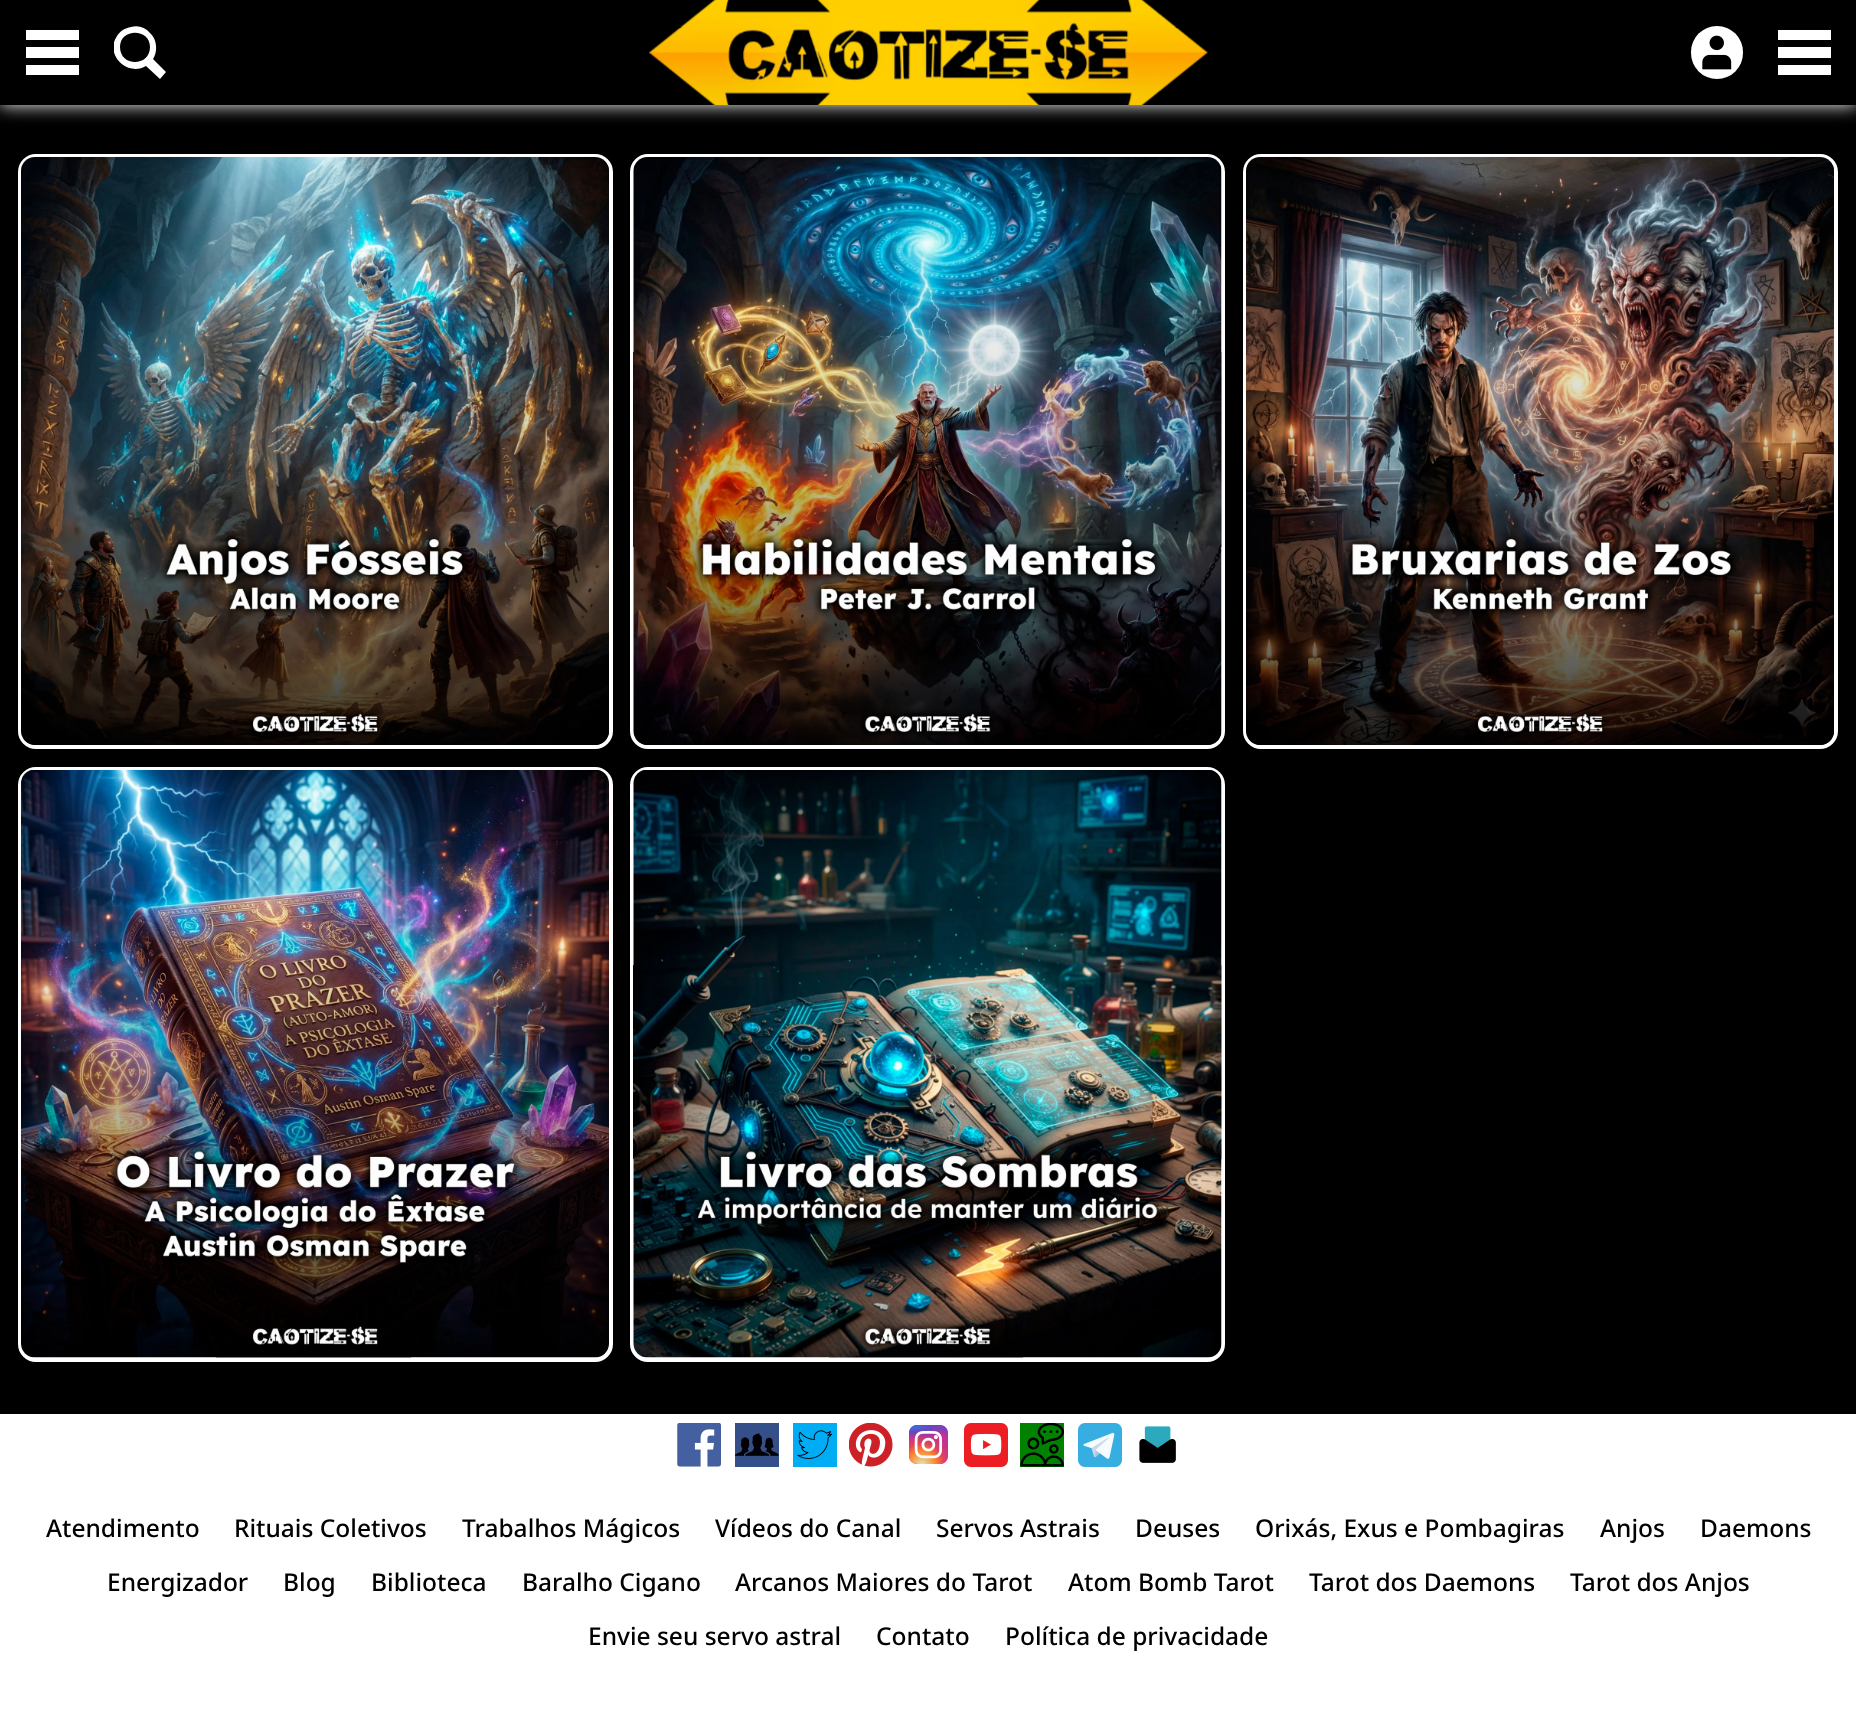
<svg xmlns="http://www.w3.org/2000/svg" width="1856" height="1724">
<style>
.a{font:500 24.5px Noto Sans;fill:#000}
</style>
<defs>
<clipPath id="clip1"><path d="M114 26h52v53H114z"/></clipPath>
</defs>
<rect width="100%" height="100%" fill="#000"/>
<path fill="#fff" filter="blur(9px)" d="M0 0h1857v105H0z"/>
<path fill="#000" d="M0 0h1856v105H0z"/>
<path fill="#fff" d="M26 30h53v10H26z"/>
<path fill="#fff" d="M26 47h53v11H26z"/>
<path fill="#fff" d="M26 65h53v10H26z"/>
<g clip-path="url(#clip1)">
<path fill="#fff" fill-rule="evenodd" d="M153 59l13 13l-6 7l-14-13c-18 11-42-11-29-30c3-5 8-8 14-9c7-2 14 0 19 6c7 6 8 18 3 26zm-33-12c0 20 30 20 30 0c0-19-30-19-30 0z"/>
</g>
<image href="1.png" x="649" y="0" width="559" height="105"/>
<rect fill="#fff" x="1691" y="26" width="52" height="53" rx="26"/>
<image href="2.png" x="1702" y="35" width="30" height="35"/>
<path fill="#fff" d="M1778 30h53v10H1778z"/>
<path fill="#fff" d="M1778 47h53v11H1778z"/>
<path fill="#fff" d="M1778 65h53v10H1778z"/>
<rect fill="none" stroke="#fff" stroke-width="4" x="20" y="156" width="591" height="591" rx="16"/>
<image href="3.png" x="21" y="157" width="588" height="588"/>
<rect fill="none" stroke="#fff" stroke-width="4" x="632" y="156" width="591" height="591" rx="16"/>
<image href="4.png" x="633" y="157" width="589" height="588"/>
<rect fill="none" stroke="#fff" stroke-width="4" x="1245" y="156" width="591" height="591" rx="16"/>
<image href="5.png" x="1246" y="157" width="588" height="588"/>
<rect fill="#fff" stroke="#fff" stroke-width="4" x="20" y="769" width="591" height="591" rx="16"/>
<image href="6.png" x="21" y="770" width="588" height="588"/>
<rect fill="#fff" stroke="#fff" stroke-width="4" x="632" y="769" width="591" height="591" rx="16"/>
<image href="7.png" x="633" y="770" width="589" height="588"/>
<path fill="#fff" d="M0 1414h1856v310H0z"/>
<image href="8.png" x="677" y="1423" width="44" height="44"/>
<path fill="#354f88" d="M735 1423h44v44H735z"/>
<image href="9.png" x="735" y="1433" width="44" height="23"/>
<path fill="#00adf4" d="M793 1423h44v44H793z"/>
<image href="10.png" x="797" y="1430" width="35" height="29"/>
<image href="11.png" x="849" y="1423" width="44" height="44"/>
<image href="12.png" x="909" y="1425" width="39" height="39"/>
<image href="13.png" x="964" y="1423" width="44" height="44"/>
<path fill="#008200" d="M1020 1423h44v44H1020z"/>
<image href="14.png" x="1020" y="1423" width="44" height="44"/>
<image href="15.png" x="1078" y="1423" width="44" height="44"/>
<image href="16.png" x="1139" y="1426" width="37" height="37"/>
<text class="a" x="46" y="1537">Atendimento</text>
<text class="a" x="234" y="1537">Rituais Coletivos</text>
<text class="a" x="462" y="1537">Trabalhos Mágicos</text>
<text class="a" x="715" y="1537">Vídeos do Canal</text>
<text class="a" x="936" y="1537">Servos Astrais</text>
<text class="a" x="1135" y="1537">Deuses</text>
<text class="a" x="1255" y="1537">Orixás, Exus e Pombagiras</text>
<text class="a" x="1600" y="1537">Anjos</text>
<text class="a" x="1700" y="1537">Daemons</text>
<text class="a" x="107" y="1591">Energizador</text>
<text class="a" x="283" y="1591">Blog</text>
<text class="a" x="371" y="1591">Biblioteca</text>
<text class="a" x="522" y="1591">Baralho Cigano</text>
<text class="a" x="735" y="1591">Arcanos Maiores do Tarot</text>
<text class="a" x="1068" y="1591">Atom Bomb Tarot</text>
<text class="a" x="1309" y="1591">Tarot dos Daemons</text>
<text class="a" x="1570" y="1591">Tarot dos Anjos</text>
<text class="a" x="588" y="1645">Envie seu servo astral</text>
<text class="a" x="876" y="1645">Contato</text>
<text class="a" x="1005" y="1645">Política de privacidade</text>
</svg>
